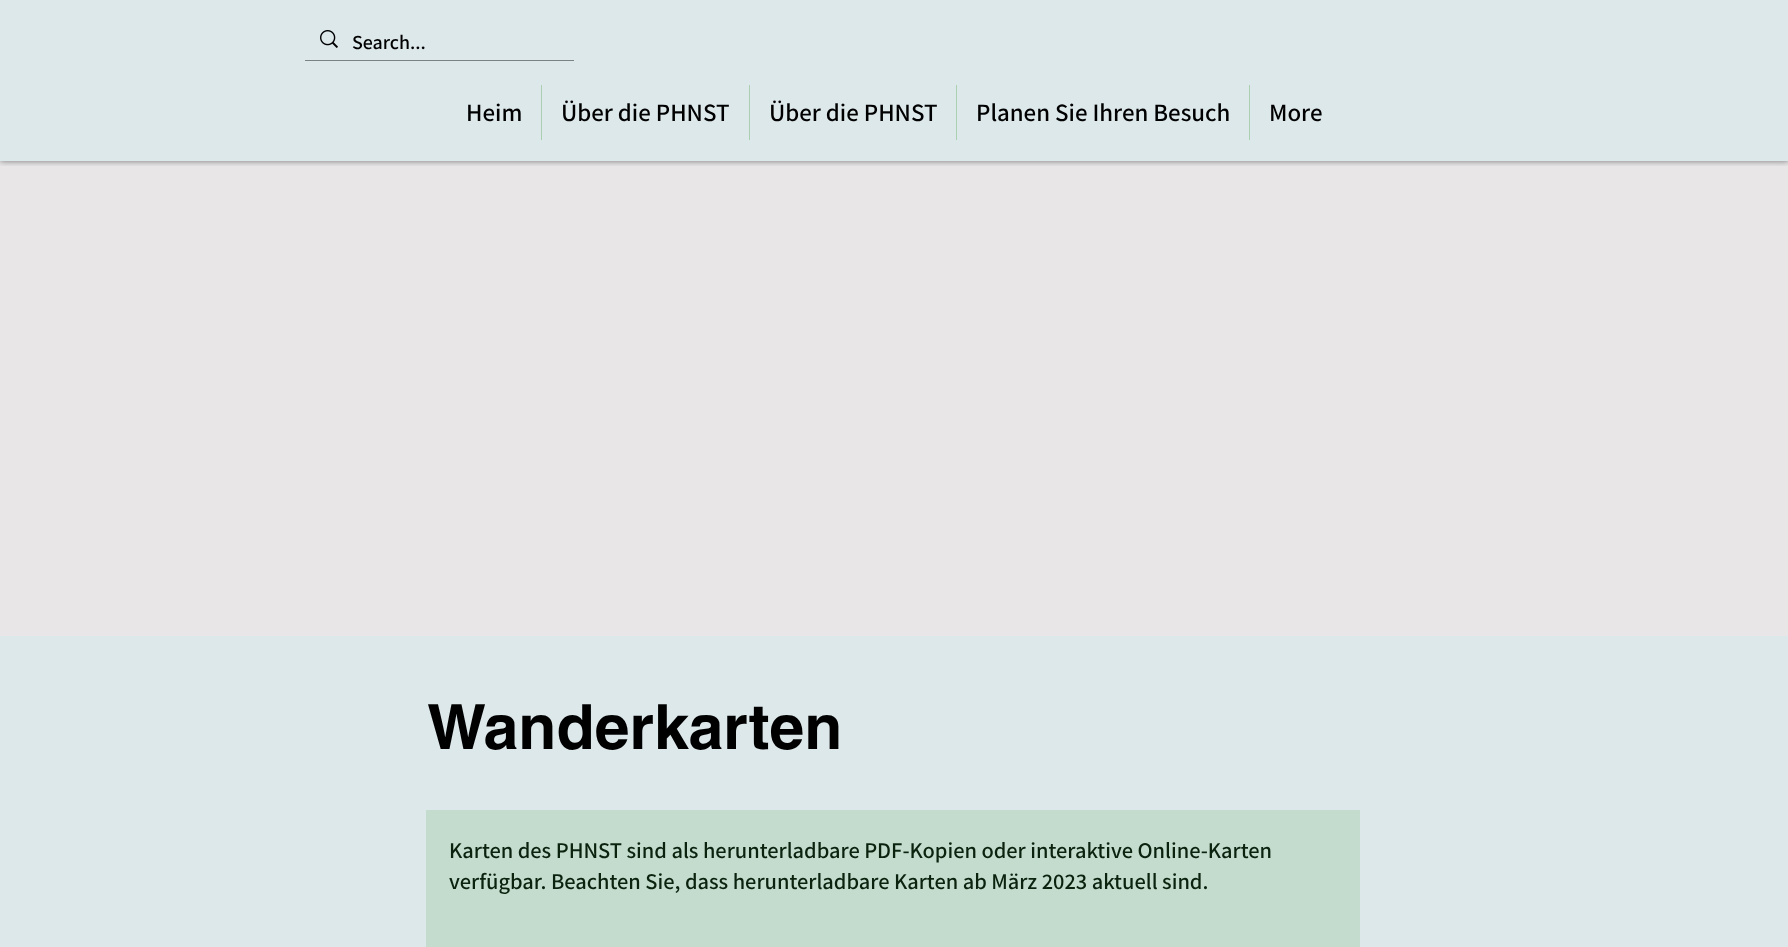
<svg xmlns="http://www.w3.org/2000/svg" width="1788" height="947">
<style>
.a{font:600 20px Assistant;fill:#000}
.b{font:600 25px Assistant;fill:#000}
.c{font:bold 62.5px helvetica;fill:#000}
.d{font:600 22.5px Assistant;fill:#0a220e}
</style>
<defs>
<clipPath id="clip1"><path d="M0 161h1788v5H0z"/></clipPath>
</defs>
<rect width="100%" height="100%" fill="#dde8eb"/>
<path fill="#e8e6e6" d="M0 161h1788v475H0z"/>
<g clip-path="url(#clip1)">
<path fill="#00000080" filter="blur(3px)" d="M0 0h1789v161H0z"/>
</g>
<path fill="#7c8284" d="M305 60h269v1H305z"/>
<image href="1.png" x="320" y="30" width="18" height="18"/>
<path fill="#abd0b1" d="M541 85h1v55H541z"/>
<path fill="#abd0b1" d="M749 85h1v55H749z"/>
<path fill="#abd0b1" d="M956 85h1v55H956z"/>
<path fill="#abd0b1" d="M1249 85h1v55H1249z"/>
<path fill="#c4dcce" d="M426 810h934v137H426z"/>
<text class="a" x="352" y="49">Search...</text>
<text class="b" x="466" y="121">Heim</text>
<text class="b" x="561" y="121">Über die PHNST</text>
<text class="b" x="769" y="121">Über die PHNST</text>
<text class="b" x="976" y="121">Planen Sie Ihren Besuch</text>
<text class="b" x="1269" y="121">More</text>
<text class="c" x="427" y="749">Wanderkarten</text>
<text class="d" x="449" y="858">Karten des PHNST sind als herunterladbare PDF-Kopien oder interaktive Online-Karten</text>
<text class="d" x="449" y="889">verfügbar. Beachten Sie, dass herunterladbare Karten ab März 2023 aktuell sind.</text>
</svg>
